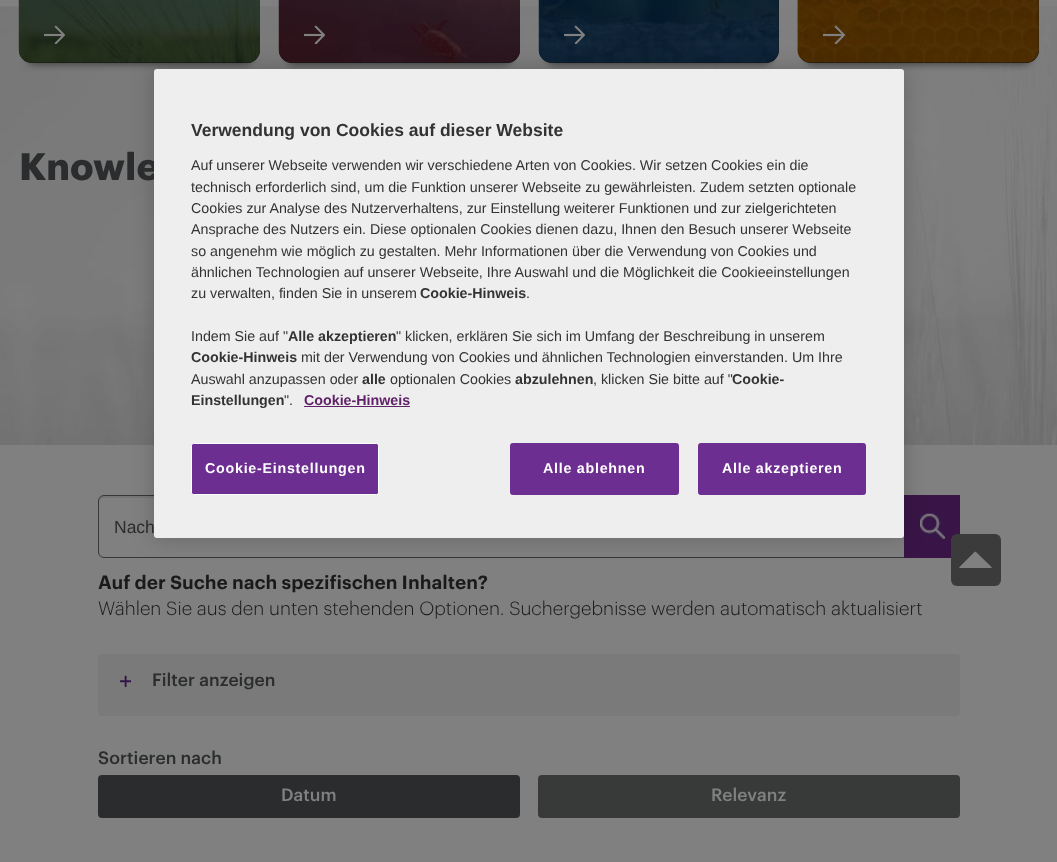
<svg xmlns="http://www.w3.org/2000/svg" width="1057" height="862">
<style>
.a{font:bold 37.5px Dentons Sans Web;fill:#2a2c2d}
.b{font:bold 14.25px Liberation Sans;letter-spacing:0.75px;fill:#fff}
.c{font:bold 14.25px Liberation Sans;fill:#5f2167}
.d{font:14.25px Liberation Sans;fill:#333}
.e{font:bold 14.25px Liberation Sans;fill:#333}
.f{font:bold 17.5px Liberation Sans;fill:#333}
.g{font:17.5px Liberation Sans;fill:#2a2c2d}
.h{font:600 18.75px Dentons Sans Web;fill:#1a1a1a}
.i{font:300 18.75px Dentons Sans Web;fill:#1a1a1a}
.j{font:500 17.5px Dentons Sans Web;fill:#2a2c2d}
.k{font:500 17.5px Dentons Sans Web;fill:#808080}
</style>
<rect width="100%" height="100%" fill="#808080"/>
<image href="1.png" x="0" y="6" width="1057" height="439"/>
<rect fill="#2a2c2d" filter="blur(4px)" x="29" y="-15" width="221" height="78" rx="2.5"/>
<rect fill="#1a1a1a" x="19" y="-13" width="241" height="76" rx="13"/>
<image href="2.png" x="18" y="0" width="242" height="63"/>
<rect fill="#00000033" x="19" y="-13" width="241" height="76" rx="13"/>
<rect fill="#2a2c2d" filter="blur(4px)" x="289" y="-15" width="221" height="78" rx="2.5"/>
<rect fill="#1a1a1a" x="279" y="-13" width="241" height="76" rx="13"/>
<image href="4.png" x="278" y="0" width="242" height="63"/>
<rect fill="#00000033" x="279" y="-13" width="241" height="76" rx="13"/>
<image href="5.png" x="304" y="25" width="21" height="19"/>
<rect fill="#2a2c2d" filter="blur(4px)" x="549" y="-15" width="220" height="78" rx="2.5"/>
<rect fill="#1a1a1a" x="539" y="-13" width="240" height="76" rx="13"/>
<image href="6.png" x="538" y="0" width="241" height="63"/>
<rect fill="#00000033" x="539" y="-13" width="240" height="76" rx="13"/>
<image href="7.png" x="564" y="25" width="21" height="19"/>
<rect fill="#2a2c2d" filter="blur(4px)" x="808" y="-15" width="221" height="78" rx="2.5"/>
<rect fill="#1a1a1a" x="798" y="-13" width="241" height="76" rx="13"/>
<image href="8.png" x="797" y="0" width="242" height="63"/>
<rect fill="#00000033" x="798" y="-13" width="241" height="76" rx="13"/>
<image href="9.png" x="823" y="25" width="22" height="19"/>
<path fill="#767676" d="M104 498h850c3 0 5 2 5 4v-1c0-3-2-5-5-5h-850c-3 0-5 2-5 5v1c0-2 2-4 5-4z"/>
<rect fill="none" stroke="#363838" x="98.5" y="495.5" width="861" height="62" rx="5.5"/>
<path fill="#391547" d="M904 495h56v63H904z"/>
<image href="10.png" x="920" y="513" width="25" height="26"/>
<rect fill="#00000033" filter="blur(11px)" x="154" y="69" width="750" height="469" rx="3"/>
<image href="3.png" x="44" y="25" width="21" height="19"/>
<rect fill="#7a7a7a" x="98" y="654" width="862" height="62" rx="4"/>
<image href="11.png" x="120" y="675" width="11" height="12"/>
<rect fill="#2a2c2d" x="98" y="775" width="422" height="43" rx="4"/>
<rect fill="#383a39" x="538" y="775" width="422" height="43" rx="4"/>
<rect fill="#3b3b3b" x="951" y="534" width="50" height="52" rx="6"/>
<path fill="#808080" d="M960 568c-1 0-1-.5-.5-1l15-15c.5-.5 1.5-.5 1.5 0l15.5 15c.5 .5 0 1-.5 1z"/>
<text class="a" x="19" y="180">Knowle</text>
<rect fill="#eee" x="154" y="69" width="750" height="469" rx="3"/>
<rect fill="#6d2e91" stroke="#fff" x="191.5" y="443.5" width="187" height="51" rx="2"/>
<text class="b" x="205" y="473">Cookie-Einstellungen</text>
<rect fill="#6d2e91" stroke="#6d2e91" x="698.5" y="443.5" width="167" height="51" rx="2"/>
<text class="b" x="722" y="473">Alle akzeptieren</text>
<rect fill="#6d2e91" stroke="#6d2e91" x="510.5" y="443.5" width="168" height="51" rx="2"/>
<text class="b" x="543" y="473">Alle ablehnen</text>
<text class="c" x="304" y="405">Cookie-Hinweis</text>
<path fill="#5f2167" d="M304 406h106v1H304z"/>
<text class="d" x="284" y="405">".</text>
<text class="e" x="191" y="405">Einstellungen</text>
<text class="e" x="732" y="384">Cookie-</text>
<text class="d" x="593" y="384">, klicken Sie bitte auf "</text>
<text class="e" x="515" y="384">abzulehnen</text>
<text class="d" x="390" y="384">optionalen Cookies</text>
<text class="e" x="362" y="384">alle</text>
<text class="d" x="191" y="384">Auswahl anzupassen oder</text>
<text class="d" x="301" y="362">mit der Verwendung von Cookies und ähnlichen Technologien einverstanden. Um Ihre</text>
<text class="e" x="191" y="362">Cookie-Hinweis</text>
<text class="d" x="396" y="341">" klicken, erklären Sie sich im Umfang der Beschreibung in unserem</text>
<text class="e" x="288" y="341">Alle akzeptieren</text>
<text class="d" x="191" y="341">Indem Sie auf "</text>
<text class="d" x="526" y="298">.</text>
<text class="e" x="420" y="298">Cookie-Hinweis</text>
<text class="d" x="191" y="298">zu verwalten, finden Sie in unserem</text>
<text class="d" x="191" y="277">ähnlichen Technologien auf unserer Webseite, Ihre Auswahl und die Möglichkeit die Cookieeinstellungen</text>
<text class="d" x="191" y="256">so angenehm wie möglich zu gestalten. Mehr Informationen über die Verwendung von Cookies und</text>
<text class="d" x="191" y="234">Ansprache des Nutzers ein. Diese optionalen Cookies dienen dazu, Ihnen den Besuch unserer Webseite</text>
<text class="d" x="191" y="213">Cookies zur Analyse des Nutzerverhaltens, zur Einstellung weiterer Funktionen und zur zielgerichteten</text>
<text class="d" x="191" y="192">technisch erforderlich sind, um die Funktion unserer Webseite zu gewährleisten. Zudem setzten optionale</text>
<text class="d" x="191" y="170">Auf unserer Webseite verwenden wir verschiedene Arten von Cookies. Wir setzen Cookies ein die</text>
<text class="f" x="191" y="136">Verwendung von Cookies auf dieser Website</text>
<text class="g" x="114" y="533">Nach</text>
<text class="h" x="98" y="589">Auf der Suche nach spezifischen Inhalten?</text>
<text class="i" x="98" y="615">Wählen Sie aus den unten stehenden Optionen. Suchergebnisse werden automatisch aktualisiert</text>
<text class="j" x="152" y="686">Filter anzeigen</text>
<text class="j" x="98" y="764">Sortieren nach</text>
<text class="k" x="281" y="801">Datum</text>
<text class="k" x="711" y="801">Relevanz</text>
</svg>
